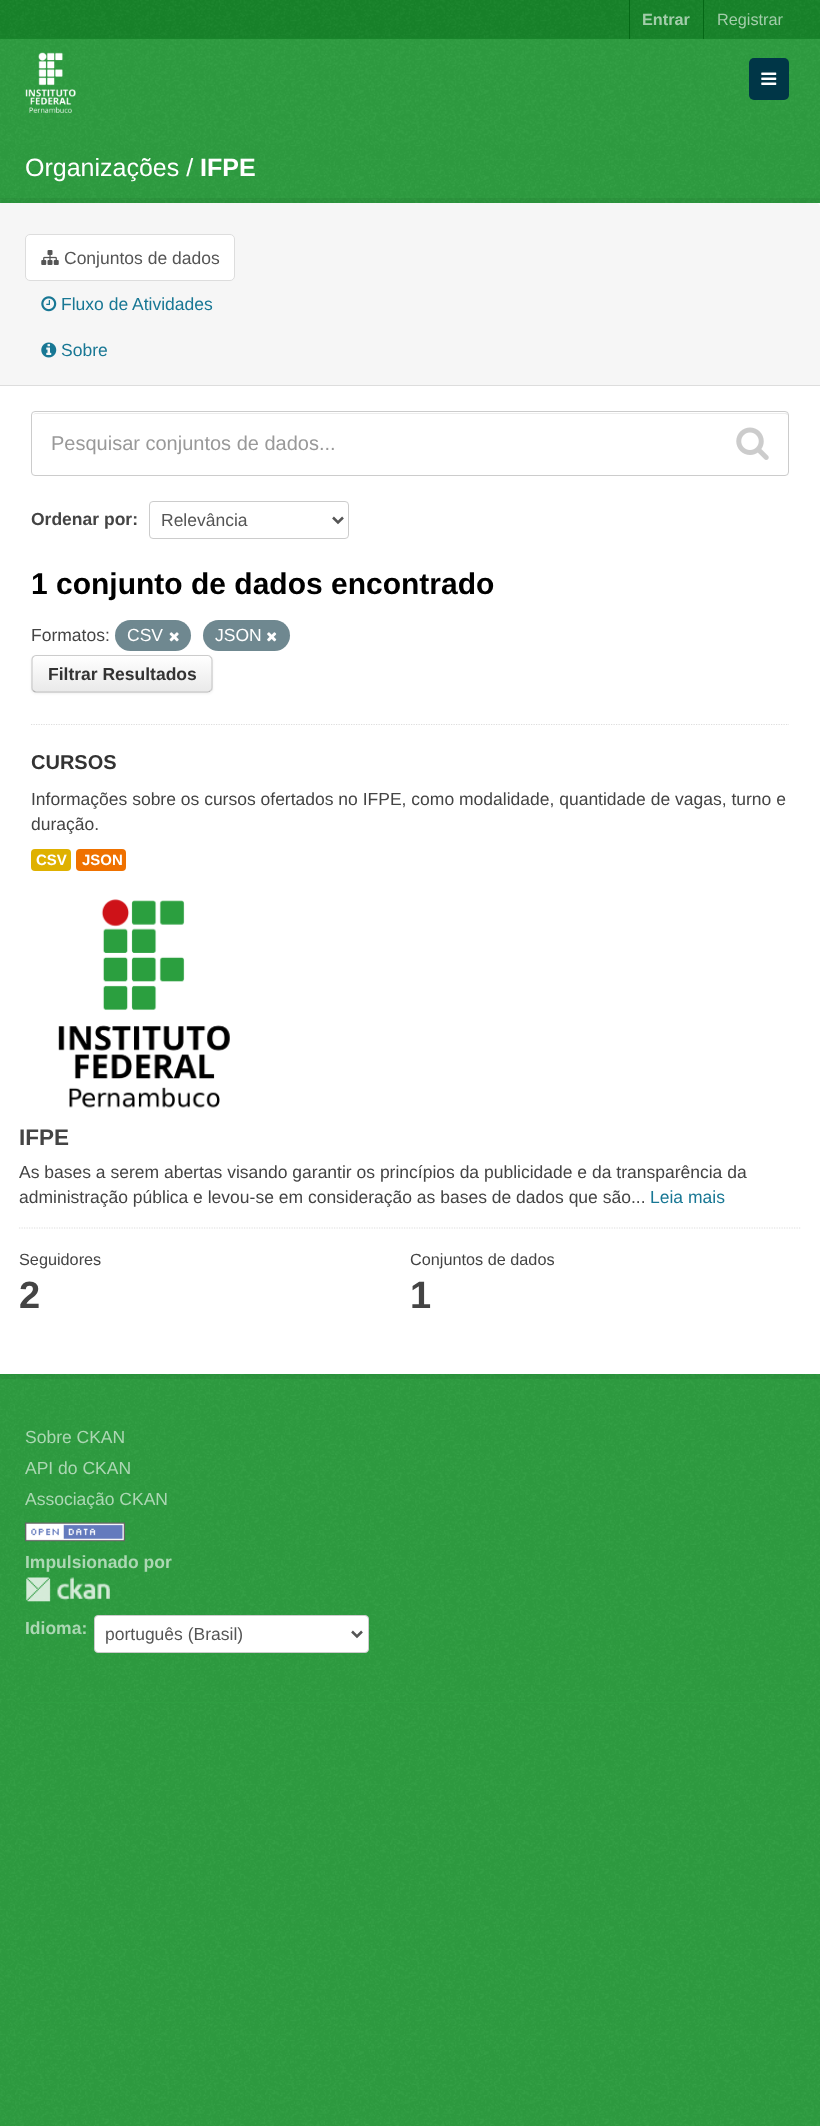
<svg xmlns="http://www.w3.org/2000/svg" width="820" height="2126">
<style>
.a{font:bold 16.25px Liberation Sans;fill:#a3cdaa}
.b{font:16.25px Liberation Sans;fill:#a3cdaa}
.c{font:25px Liberation Sans;fill:#fff}
.d{font:bold 25px Liberation Sans;fill:#fff}
.e{font:17.5px Liberation Sans;fill:#555}
.f{font:17.5px Liberation Sans;fill:#187794}
.g{font:20px Liberation Sans;fill:#999}
.h{font:bold 17.5px Liberation Sans;fill:#444}
.i{font:bold 30px Liberation Sans;fill:#000}
.j{font:17.5px Liberation Sans;fill:#444}
.k{font:17.5px Liberation Sans;fill:#fff}
.l{font:bold 17.5px Liberation Sans;fill:#333}
.m{font:bold 20px Liberation Sans;fill:#333}
.n{font:bold 15px Liberation Sans;fill:#fff}
.o{font:bold 22.5px Liberation Sans;fill:#444}
.p{font:16.25px Liberation Sans;fill:#444}
.q{font:bold 38px Liberation Sans;fill:#444}
.r{font:17.5px Liberation Sans;fill:#acd7b3}
.s{font:bold 17.5px Liberation Sans;fill:#acd7b3}
</style>
<defs>
<clipPath id="clip1"><rect x="31" y="655" width="182" height="38" rx="5"/></clipPath>
<linearGradient id="g1" gradientUnits="userSpaceOnUse" x1="122" y1="656" x2="122" y2="691"><stop offset="0" stop-color="#fff"/><stop offset="1" stop-color="#eaeaea"/></linearGradient>
</defs>
<rect width="100%" height="100%" fill="#2f9e42"/>
<image href="1.png" x="0" y="145" width="820" height="1981"/>
<path fill="#18852b" d="M0 0h820v39H0z"/>
<image href="2.png" x="0" y="0" width="820" height="38"/>
<path fill="#056816" d="M629 0h1v39H629z"/>
<path fill="#056816" d="M703 0h1v39H703z"/>
<image href="3.png" x="0" y="39" width="820" height="106"/>
<image href="4.png" x="25" y="52" width="51" height="61"/>
<rect fill="#003647" x="749" y="58" width="40" height="42" rx="5"/>
<image href="5.png" x="761" y="72" width="16" height="13"/>
<path fill="none" stroke="#0000000d" stroke-width="5" d="M-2.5 200.5h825v1176H-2.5z"/>
<path fill="#fff" d="M0 203h820v1171H0z"/>
<path fill="#f6f6f6" d="M0 203h816c2 0 4 2 4 4v179h-820z"/>
<path fill="#ddd" d="M0 385h820v1H0z"/>
<rect fill="#fff" stroke="#ddd" x="25.5" y="234.5" width="209" height="46" rx="4.5"/>
<image href="6.png" x="41" y="250" width="18" height="15"/>
<image href="7.png" x="41" y="296" width="16" height="16"/>
<image href="8.png" x="41" y="342" width="16" height="16"/>
<path fill="none" stroke="#ddd" stroke-width="1.2" stroke-dasharray="1.25 1.25" d="M31 724.5h758"/>
<path fill="#ececec" d="M35 414h750c1 0 3 1 3 2c0-2-1-3-2-3h-750c-2 0-2 1-3 2z"/>
<rect fill="none" stroke="#ccc" x="31.5" y="411.5" width="757" height="64" rx="3.5"/>
<image href="9.png" x="736" y="427" width="33" height="33"/>
<rect fill="none" stroke="#ccc" x="149.5" y="501.5" width="199" height="37" rx="3.5"/>
<path fill="none" stroke="#555" stroke-width="2.5" d="M333 517.5l5 5l5-5"/>
<rect fill="#6f8890" x="115" y="620" width="76" height="31" rx="15.5"/>
<image href="10.png" x="169" y="632" width="10" height="10"/>
<rect fill="#6f8890" x="203" y="620" width="87" height="31" rx="15.5"/>
<image href="11.png" x="267" y="632" width="10" height="10"/>
<rect fill="#0000000d" filter="blur(1px)" x="31" y="656" width="182" height="38" rx="5"/>
<rect fill="#f7f7f7" x="31" y="655" width="182" height="38" rx="5"/>
<g clip-path="url(#clip1)">
<path fill="url(#g1)" d="M31 656h182v35H31z"/>
</g>
<path fill="none" stroke="#b3b3b3" stroke-width="1.2" d="M210.5 690.5c-.5 1-2 1.5-3 1.5h-171.5c-1 0-2-.5-3-1.5"/>
<path fill="none" stroke="#ccc" stroke-width="1.2" d="M33 690.5c-.5-.5-1-2-1-3v-27.5c0-1 .5-2.5 1-3c1-1 2-1.5 3-1.5h171.5c1 0 2.5 .5 3 1.5c1 .5 1.5 2 1.5 3v27.5c0 1-.5 2.5-1.5 3"/>
<rect fill="#dfb100" x="31" y="849" width="40" height="22" rx="4"/>
<rect fill="#ef7100" x="76" y="849" width="50" height="22" rx="4"/>
<image href="12.png" x="58" y="899" width="172" height="209"/>
<path fill="none" stroke="#ddd" stroke-width="1.2" stroke-dasharray="1.25 1.25" d="M19 1228h782"/>
<path fill="#2f9e42" d="M25 1399h770v304H25z"/>
<image href="13.png" x="25" y="1399" width="770" height="303"/>
<image href="14.png" x="25" y="1522" width="100" height="20"/>
<image href="15.png" x="26" y="1577" width="84" height="25"/>
<rect fill="#fff" stroke="#ccc" x="94.5" y="1615.5" width="274" height="37" rx="3.5"/>
<path fill="none" stroke="#555" stroke-width="2.5" d="M352 1631.5l5 5l5-5"/>
<text class="a" x="642" y="25">Entrar</text>
<text class="b" x="717" y="25">Registrar</text>
<text class="c" x="25" y="176">Organizações /</text>
<text class="d" x="200" y="176">IFPE</text>
<text class="e" x="64" y="264">Conjuntos de dados</text>
<text class="f" x="61" y="310">Fluxo de Atividades</text>
<text class="f" x="61" y="356">Sobre</text>
<text class="g" x="51" y="450">Pesquisar conjuntos de dados...</text>
<text class="h" x="31" y="525">Ordenar por:</text>
<text class="e" x="161" y="526">Relevância</text>
<text class="i" x="31" y="594">1 conjunto de dados encontrado</text>
<text class="j" x="31" y="641">Formatos:</text>
<text class="k" x="127" y="641">CSV</text>
<text class="k" x="215" y="641">JSON</text>
<text class="l" x="48" y="680">Filtrar Resultados</text>
<text class="m" x="31" y="769">CURSOS</text>
<text class="j" x="31" y="805">Informações sobre os cursos ofertados no IFPE, como modalidade, quantidade de vagas, turno e</text>
<text class="j" x="31" y="830">duração.</text>
<text class="n" x="36" y="865">CSV</text>
<text class="n" x="82" y="865">JSON</text>
<text class="o" x="19" y="1145">IFPE</text>
<text class="j" x="19" y="1178">As bases a serem abertas visando garantir os princípios da publicidade e da transparência da</text>
<text class="j" x="19" y="1203">administração pública e levou-se em consideração as bases de dados que são...</text>
<text class="f" x="650" y="1203">Leia mais</text>
<text class="p" x="19" y="1265">Seguidores</text>
<text class="q" x="19" y="1308">2</text>
<text class="p" x="410" y="1265">Conjuntos de dados</text>
<text class="q" x="410" y="1308">1</text>
<text class="r" x="25" y="1443">Sobre CKAN</text>
<text class="r" x="25" y="1474">API do CKAN</text>
<text class="r" x="25" y="1505">Associação CKAN</text>
<text class="s" x="25" y="1568">Impulsionado por</text>
<text class="s" x="25" y="1634">Idioma:</text>
<text class="e" x="105" y="1640">português (Brasil)</text>
</svg>
